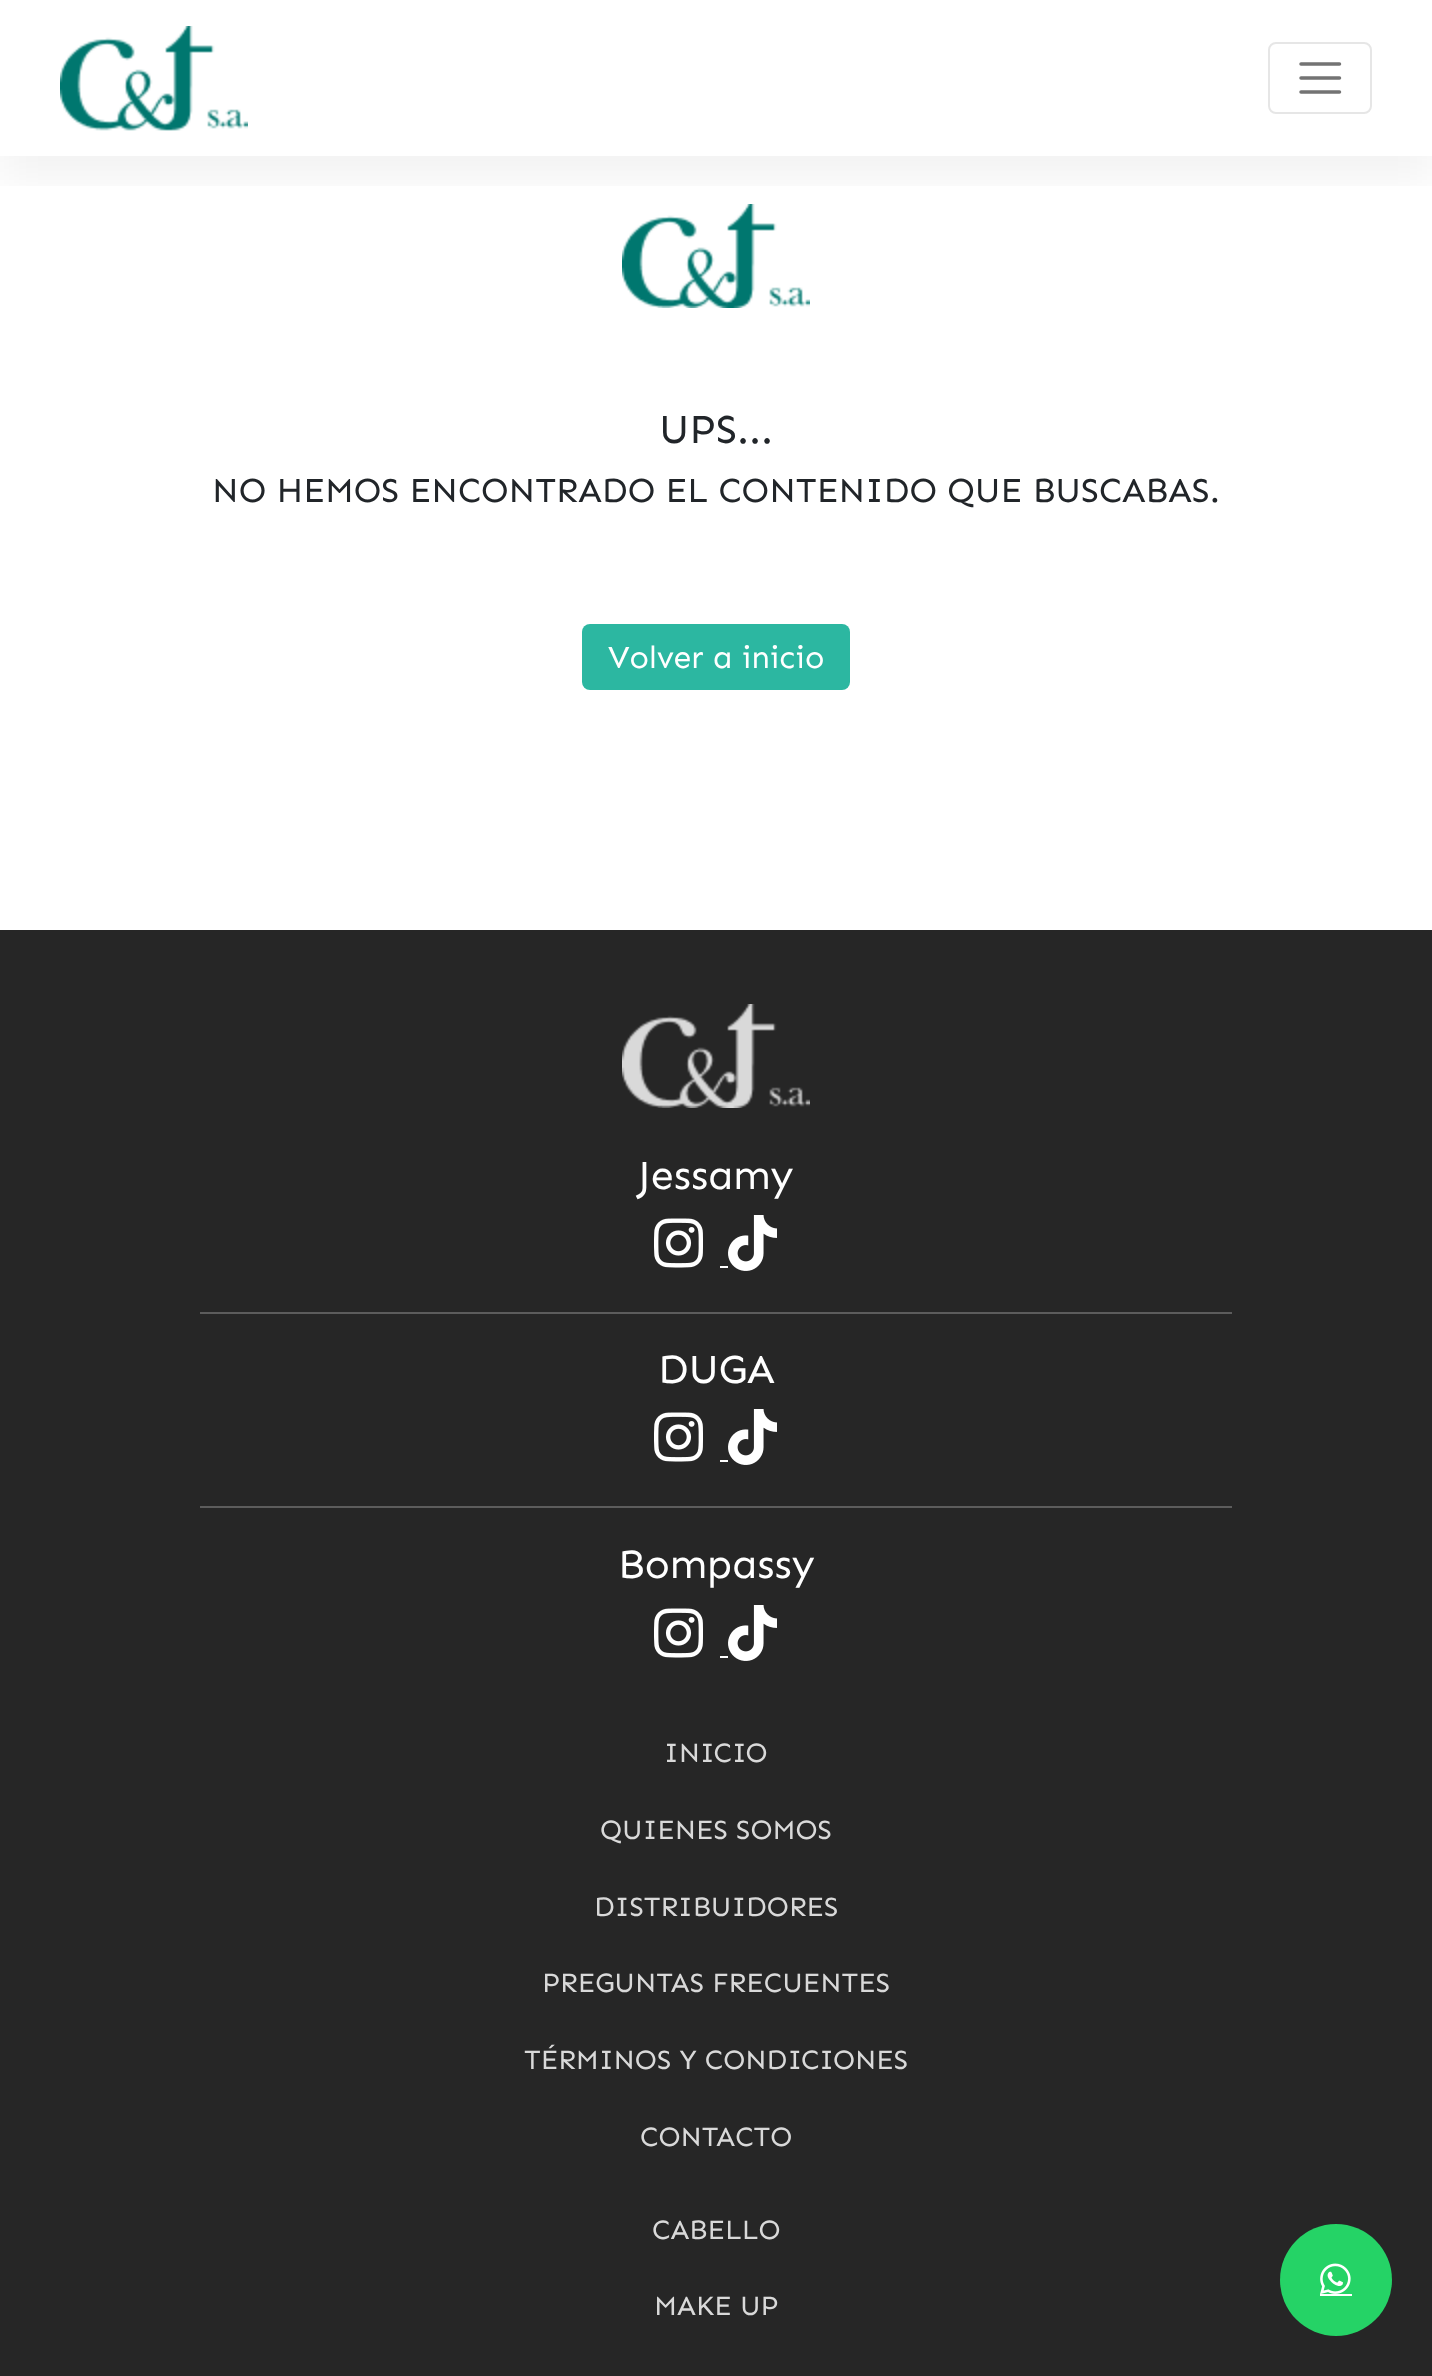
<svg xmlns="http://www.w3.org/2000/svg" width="1432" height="2376">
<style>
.a{font:41.25px Sen;fill:#212529}
.b{font:35px Sen;fill:#212529}
.c{font:32px Sen;fill:#fff}
.d{font:41.25px Sen;fill:#fff}
.e{font:28px Sen;fill:#d9d9d9}
</style>
<defs>
<clipPath id="clip1"><path d="M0 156h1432v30H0z"/></clipPath>
</defs>
<rect width="100%" height="100%" fill="#fff"/>
<image href="2.png" x="622" y="204" width="188" height="104"/>
<g clip-path="url(#clip1)">
<path fill="#0000000d" filter="blur(23px)" d="M0 20h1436v160H0z"/>
</g>
<image href="1.png" x="60" y="26" width="188" height="105"/>
<rect fill="none" stroke="#e6e6e6" stroke-width="2" x="1269" y="43" width="102" height="70" rx="7"/>
<path fill="none" stroke="#737373" stroke-width="3.5" stroke-linecap="round" d="M1301 64h38.5m-38.5 14h38.5m-38.5 14h38.5"/>
<rect fill="#2cb7a1" x="582" y="624" width="268" height="66" rx="8"/>
<path fill="#262626" d="M0 930h1432v1446H0z"/>
<image href="3.png" x="622" y="1004" width="188" height="104"/>
<image href="4.png" x="654" y="1218" width="49" height="50"/>
<path fill="#fff" d="M720 1266h8v2H720z"/>
<image href="5.png" x="728" y="1215" width="49" height="56"/>
<path fill="#5c5c5c" d="M200 1312h1032v2H200z"/>
<image href="4.png" x="654" y="1412" width="49" height="50"/>
<path fill="#fff" d="M720 1460h8v2H720z"/>
<image href="5.png" x="728" y="1409" width="49" height="56"/>
<path fill="#5c5c5c" d="M200 1506h1032v2H200z"/>
<image href="4.png" x="654" y="1608" width="49" height="50"/>
<path fill="#fff" d="M720 1656h8v2H720z"/>
<image href="5.png" x="728" y="1605" width="49" height="56"/>
<circle fill="#25d366" cx="1336" cy="2280" r="56"/>
<image href="6.png" x="1320" y="2263" width="31" height="31"/>
<path fill="#fff" d="M1320 2294h32v2H1320z"/>
<text class="a" x="659" y="443">UPS...</text>
<text class="b" x="212" y="502">NO HEMOS ENCONTRADO EL CONTENIDO QUE BUSCABAS.</text>
<text class="c" x="608" y="668">Volver a inicio</text>
<text class="d" x="638" y="1189">Jessamy</text>
<text class="d" x="658" y="1383">DUGA</text>
<text class="d" x="618" y="1578">Bompassy</text>
<text class="e" x="664" y="1762">INICIO</text>
<text class="e" x="600" y="1839">QUIENES SOMOS</text>
<text class="e" x="594" y="1916">DISTRIBUIDORES</text>
<text class="e" x="542" y="1992">PREGUNTAS FRECUENTES</text>
<text class="e" x="524" y="2069">TÉRMINOS Y CONDICIONES</text>
<text class="e" x="640" y="2146">CONTACTO</text>
<text class="e" x="652" y="2239">CABELLO</text>
<text class="e" x="654" y="2315">MAKE UP</text>
</svg>
